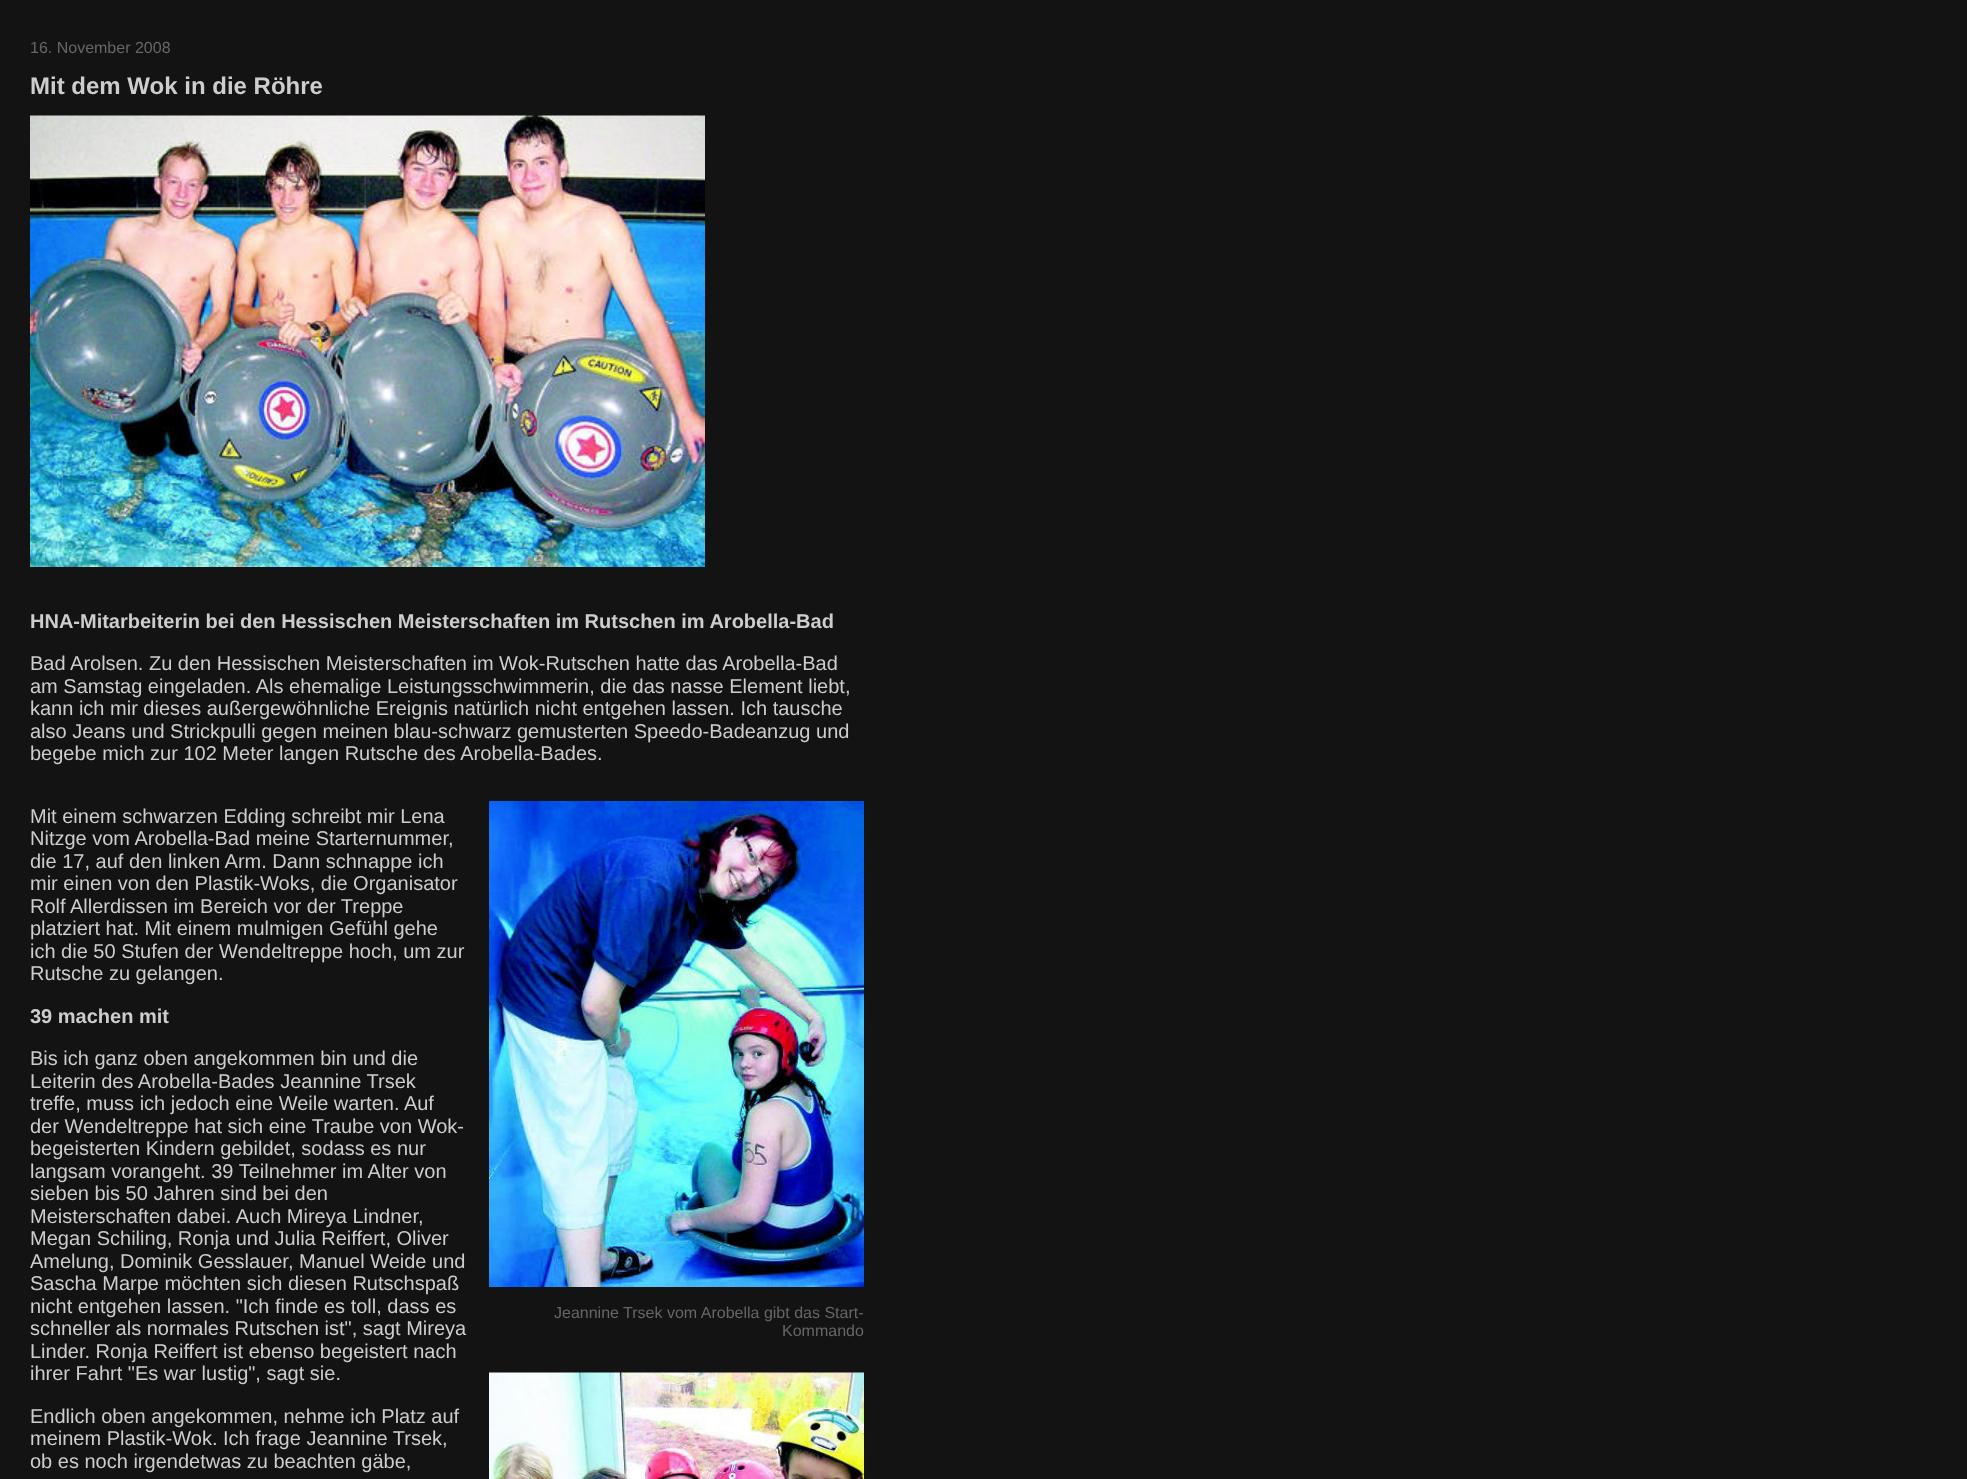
<svg xmlns="http://www.w3.org/2000/svg" width="1967" height="1479">
<style>
.a{font:16px Liberation Sans;fill:#666}
.b{font:bold 24px Liberation Sans;fill:#cdcdcd}
.c{font:bold 20px Liberation Sans;fill:#cdcdcd}
.d{font:20px Liberation Sans;fill:#cdcdcd}
</style>
<rect width="100%" height="100%" fill="#131313"/>
<image href="1.png" x="30" y="115" width="675" height="452"/>
<image href="2.png" x="489" y="801" width="375" height="486"/>
<image href="3.png" x="489" y="1372" width="375" height="107"/>
<text class="a" x="30" y="53">16. November 2008</text>
<text class="b" x="30" y="94">Mit dem Wok in die Röhre</text>
<text class="c" x="30" y="628">HNA-Mitarbeiterin bei den Hessischen Meisterschaften im Rutschen im Arobella-Bad</text>
<text class="d" x="30" y="670">Bad Arolsen. Zu den Hessischen Meisterschaften im Wok-Rutschen hatte das Arobella-Bad</text>
<text class="d" x="30" y="693">am Samstag eingeladen. Als ehemalige Leistungsschwimmerin, die das nasse Element liebt,</text>
<text class="d" x="30" y="715">kann ich mir dieses außergewöhnliche Ereignis natürlich nicht entgehen lassen. Ich tausche</text>
<text class="d" x="30" y="738">also Jeans und Strickpulli gegen meinen blau-schwarz gemusterten Speedo-Badeanzug und</text>
<text class="d" x="30" y="760">begebe mich zur 102 Meter langen Rutsche des Arobella-Bades.</text>
<text class="d" x="30" y="823">Mit einem schwarzen Edding schreibt mir Lena</text>
<text class="d" x="30" y="845">Nitzge vom Arobella-Bad meine Starternummer,</text>
<text class="d" x="30" y="868">die 17, auf den linken Arm. Dann schnappe ich</text>
<text class="d" x="30" y="890">mir einen von den Plastik-Woks, die Organisator</text>
<text class="d" x="30" y="913">Rolf Allerdissen im Bereich vor der Treppe</text>
<text class="d" x="30" y="935">platziert hat. Mit einem mulmigen Gefühl gehe</text>
<text class="d" x="30" y="958">ich die 50 Stufen der Wendeltreppe hoch, um zur</text>
<text class="d" x="30" y="980">Rutsche zu gelangen.</text>
<text class="c" x="30" y="1023">39 machen mit</text>
<text class="d" x="30" y="1065">Bis ich ganz oben angekommen bin und die</text>
<text class="d" x="30" y="1088">Leiterin des Arobella-Bades Jeannine Trsek</text>
<text class="d" x="30" y="1110">treffe, muss ich jedoch eine Weile warten. Auf</text>
<text class="d" x="30" y="1133">der Wendeltreppe hat sich eine Traube von Wok-</text>
<text class="d" x="30" y="1155">begeisterten Kindern gebildet, sodass es nur</text>
<text class="d" x="30" y="1178">langsam vorangeht. 39 Teilnehmer im Alter von</text>
<text class="d" x="30" y="1200">sieben bis 50 Jahren sind bei den</text>
<text class="d" x="30" y="1223">Meisterschaften dabei. Auch Mireya Lindner,</text>
<text class="d" x="30" y="1245">Megan Schiling, Ronja und Julia Reiffert, Oliver</text>
<text class="d" x="30" y="1268">Amelung, Dominik Gesslauer, Manuel Weide und</text>
<text class="d" x="30" y="1290">Sascha Marpe möchten sich diesen Rutschspaß</text>
<text class="d" x="30" y="1313">nicht entgehen lassen. "Ich finde es toll, dass es</text>
<text class="d" x="30" y="1335">schneller als normales Rutschen ist", sagt Mireya</text>
<text class="d" x="30" y="1358">Linder. Ronja Reiffert ist ebenso begeistert nach</text>
<text class="d" x="30" y="1380">ihrer Fahrt "Es war lustig", sagt sie.</text>
<text class="d" x="30" y="1423">Endlich oben angekommen, nehme ich Platz auf</text>
<text class="d" x="30" y="1445">meinem Plastik-Wok. Ich frage Jeannine Trsek,</text>
<text class="d" x="30" y="1468">ob es noch irgendetwas zu beachten gäbe,</text>
<text class="a" x="554" y="1318">Jeannine Trsek vom Arobella gibt das Start-</text>
<text class="a" x="782" y="1336">Kommando</text>
</svg>
